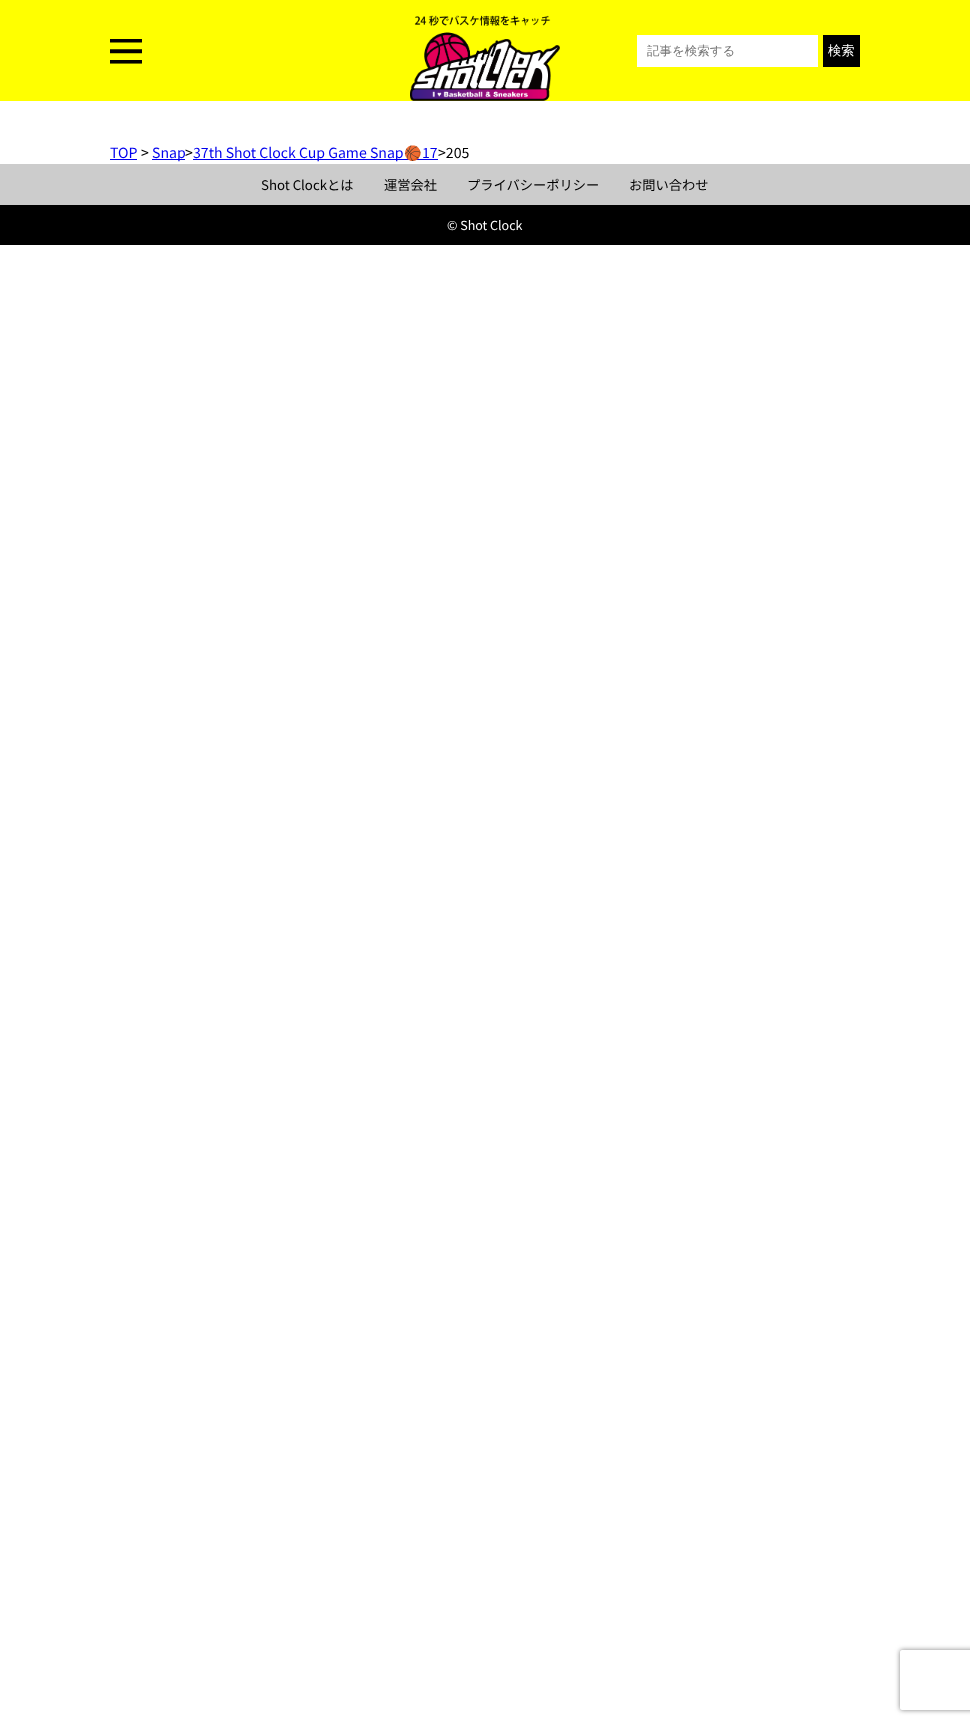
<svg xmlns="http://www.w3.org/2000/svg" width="970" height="1724">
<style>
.a{font:500 12.5px WenQuanYi Zen Hei;fill:#757575}
.b{font:500 13.25px WenQuanYi Zen Hei;fill:#fff}
.c{font:14.1px Noto Sans JP;fill:#00e}
.d{font:14.1px Noto Sans JP;fill:#000}
.e{font:14.1px Noto Color Emoji;fill:#00e}
.f{font:13.25px Noto Sans JP;fill:#000}
.g{font:12.5px Noto Sans JP;fill:#fff}
</style>
<defs>
<clipPath id="clip1"><path d="M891 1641h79v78h-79zm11 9h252c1 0 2 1 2 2v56c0 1-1 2-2 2h-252c-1 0-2-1-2-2v-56c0-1 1-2 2-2z" clip-rule="evenodd"/></clipPath>
</defs>
<rect width="100%" height="100%" fill="#fff"/>
<path fill="#ff0" d="M0 0h970v101H0z"/>
<image href="1.png" x="110" y="39" width="32" height="25"/>
<image href="2.png" x="410" y="15" width="150" height="86"/>
<path fill="#fff" d="M637 35h181v32H637z"/>
<path fill="#000" d="M823 35h37v32H823z"/>
<path fill="#000" d="M0 205h970v40H0z"/>
<path fill="#00e" d="M110 159h27v1H110z"/>
<path fill="#00e" d="M152 159h33v1H152z"/>
<path fill="#00e" d="M193 159h245v1H193z"/>
<path fill="#ccc" d="M0 164h970v41H0z"/>
<g clip-path="url(#clip1)">
<rect fill="#808080" filter="blur(2.5px)" x="900" y="1650" width="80" height="60" rx="2"/>
</g>
<text class="a" x="647" y="55">記事を検索する</text>
<text class="b" x="828" y="55">検索</text>
<text class="c" x="110" y="158">TOP</text>
<text class="d" x="141" y="158">&gt;</text>
<text class="c" x="152" y="158">Snap</text>
<text class="d" x="185" y="158">&gt;</text>
<text class="c" x="193" y="158">37th Shot Clock Cup Game Snap</text>
<text class="e" x="404" y="158">🏀</text>
<text class="c" x="422" y="158">17</text>
<text class="d" x="438" y="158">&gt;205</text>
<text class="f" x="261" y="190">Shot Clockとは</text>
<text class="f" x="384" y="190">運営会社</text>
<text class="f" x="467" y="190">プライバシーポリシー</text>
<text class="f" x="629" y="190">お問い合わせ</text>
<text class="g" x="447" y="230">© Shot Clock</text>
</svg>
